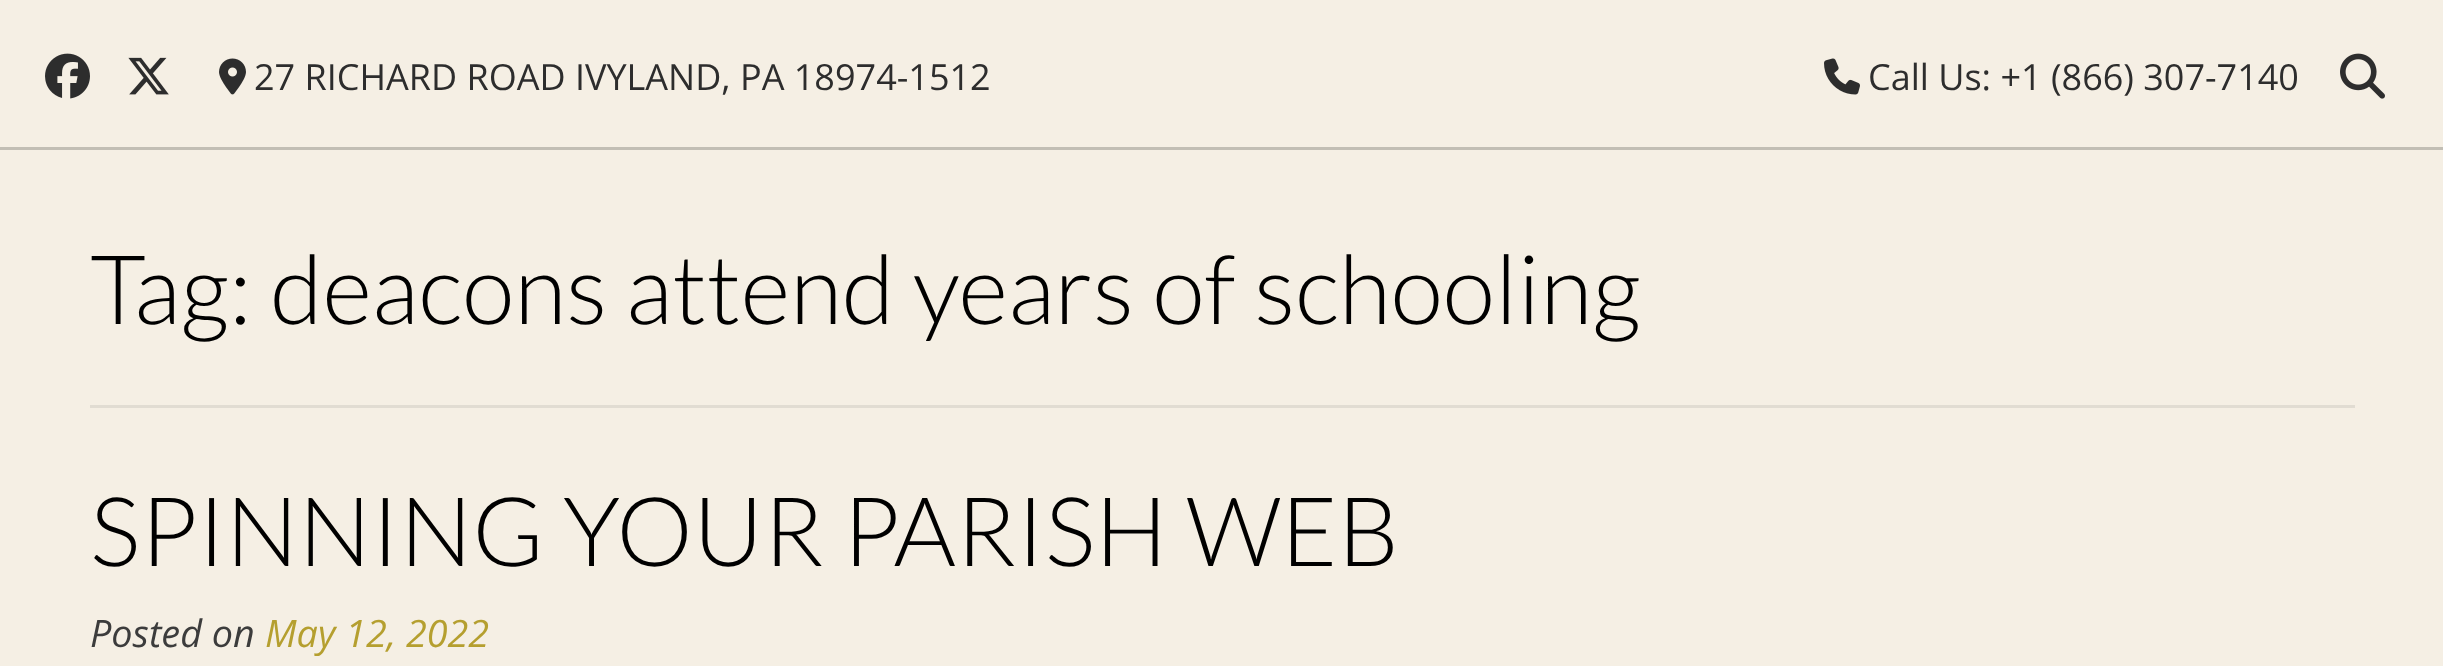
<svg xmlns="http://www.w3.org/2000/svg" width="2443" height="666">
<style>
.a{font:36px Open Sans;fill:#2d2d2d}
.b{font:300 96px Lato;fill:#000}
.c{font:italic 37.75px Open Sans;fill:#3c3c3c}
.d{font:italic 37.75px Open Sans;fill:#b59f2f}
</style>
<rect width="100%" height="100%" fill="#f5efe4"/>
<path fill="#c2beb4" d="M0 147h2443v3H0z"/>
<image href="1.png" x="45" y="53" width="45" height="46"/>
<image href="2.png" x="128" y="57" width="41" height="38"/>
<image href="3.png" x="219" y="58" width="27" height="37"/>
<image href="4.png" x="1824" y="58" width="36" height="37"/>
<image href="5.png" x="2340" y="53" width="45" height="46"/>
<path fill="#e1dcd2" d="M90 405h2265v3H90z"/>
<text class="a" x="254" y="90">27 RICHARD ROAD IVYLAND, PA 18974-1512</text>
<text class="a" x="1868" y="90">Call Us: +1 (866) 307-7140</text>
<text class="b" x="90" y="324">Tag: deacons attend years of schooling</text>
<text class="b" x="90" y="566">SPINNING YOUR PARISH WEB</text>
<text class="c" x="90" y="647">Posted on</text>
<text class="d" x="265" y="647">May 12, 2022</text>
</svg>
